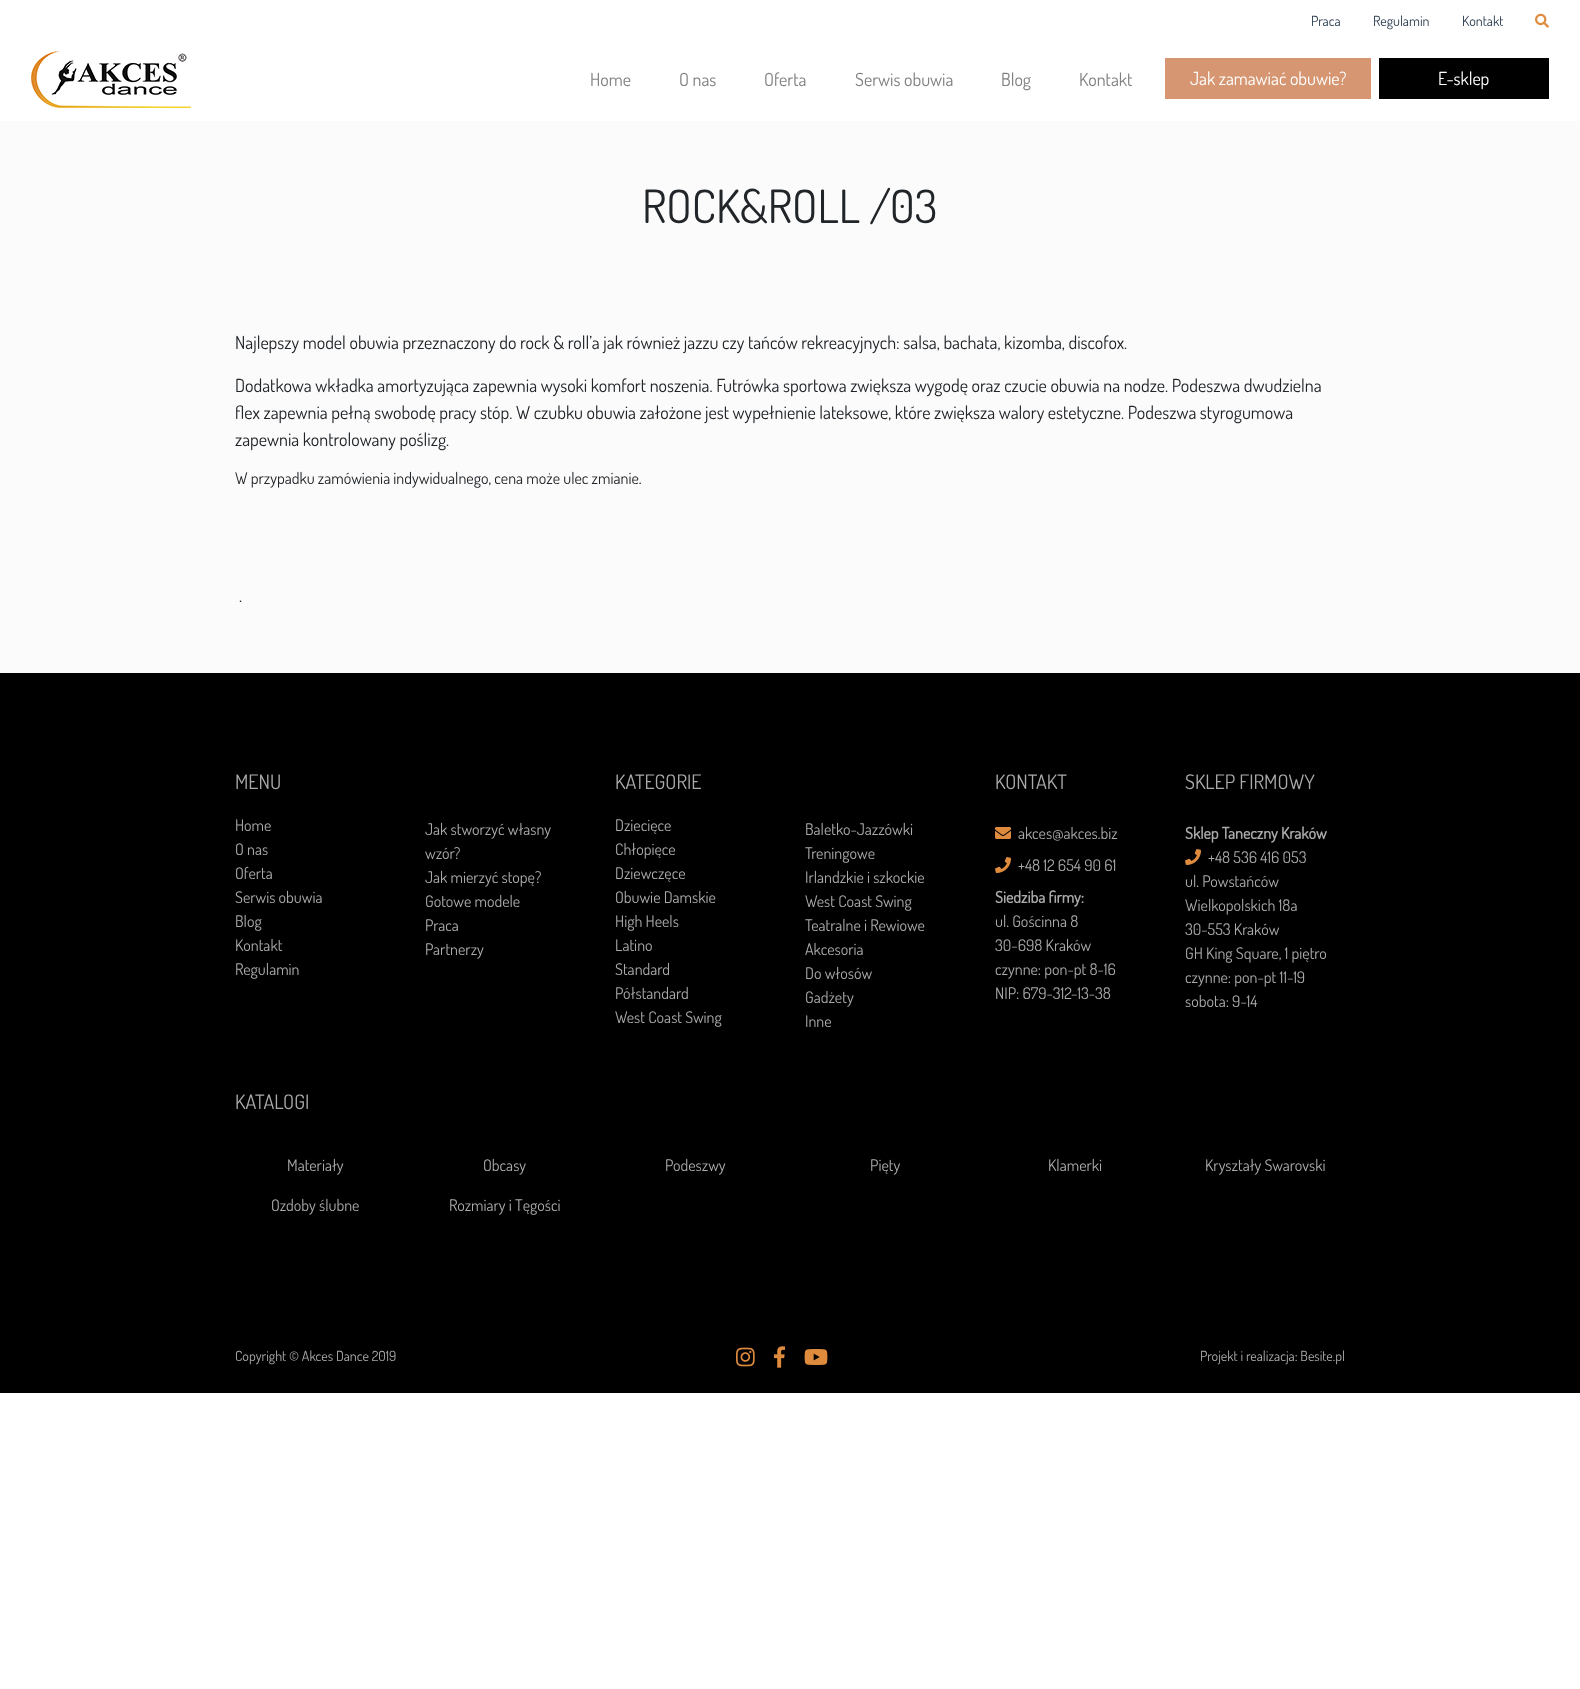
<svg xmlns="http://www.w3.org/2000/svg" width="1580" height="1689">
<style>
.a{font:14px Dosis;fill:#2c3e50}
.b{font:18px Dosis;fill:#808080}
.c{font:18px Dosis;fill:#fff}
.d{font:46px Dosis;fill:#212529}
.e{font:18px Dosis;fill:#212529}
.f{font:16px Dosis;fill:#212529}
.g{font:20px Dosis;fill:#aaa}
.h{font:16px Dosis;fill:#aaa}
.i{font:bold 16px Dosis;fill:#aaa}
.j{font:14px Dosis;fill:#aaa}
</style>
<rect width="100%" height="100%" fill="#fff"/>
<image href="1.png" x="1535" y="13" width="14" height="15"/>
<image href="2.png" x="31" y="51" width="160" height="57"/>
<path fill="#d59671" d="M1165 58h206v41H1165z"/>
<path fill="#000" d="M1379 58h170v41H1379z"/>
<path fill="#fbfbfb" d="M0 121h1580v552H0z"/>
<path fill="#000" d="M0 673h1580v720H0z"/>
<image href="3.png" x="995" y="827" width="16" height="12"/>
<image href="4.png" x="995" y="857" width="16" height="16"/>
<image href="4.png" x="1185" y="849" width="16" height="16"/>
<image href="5.png" x="736" y="1347" width="19" height="20"/>
<image href="6.png" x="774" y="1346" width="11" height="22"/>
<image href="7.png" x="804" y="1349" width="24" height="16"/>
<text class="a" x="1311" y="26">Praca</text>
<text class="a" x="1373" y="26">Regulamin</text>
<text class="a" x="1462" y="26">Kontakt</text>
<text class="b" x="590" y="86">Home</text>
<text class="b" x="679" y="86">O nas</text>
<text class="b" x="764" y="86">Oferta</text>
<text class="b" x="855" y="86">Serwis obuwia</text>
<text class="b" x="1001" y="86">Blog</text>
<text class="b" x="1079" y="86">Kontakt</text>
<text class="c" x="1190" y="85">Jak zamawiać obuwie?</text>
<text class="c" x="1438" y="85">E-sklep</text>
<text class="d" x="642" y="223">ROCK&amp;ROLL /03</text>
<text class="e" x="235" y="349">Najlepszy model obuwia przeznaczony do rock &amp; roll’a jak również jazzu czy tańców rekreacyjnych: salsa, bachata, kizomba, discofox.</text>
<text class="e" x="235" y="392">Dodatkowa wkładka amortyzująca zapewnia wysoki komfort noszenia. Futrówka sportowa zwiększa wygodę oraz czucie obuwia na nodze. Podeszwa dwudzielna</text>
<text class="e" x="235" y="419">flex zapewnia pełną swobodę pracy stóp. W czubku obuwia założone jest wypełnienie lateksowe, które zwiększa walory estetyczne. Podeszwa styrogumowa</text>
<text class="e" x="235" y="446">zapewnia kontrolowany poślizg.</text>
<text class="f" x="235" y="484">W przypadku zamówienia indywidualnego, cena może ulec zmianie.</text>
<text class="e" x="239" y="602">.</text>
<text class="g" x="235" y="789">MENU</text>
<text class="h" x="235" y="831">Home</text>
<text class="h" x="235" y="855">O nas</text>
<text class="h" x="235" y="879">Oferta</text>
<text class="h" x="235" y="903">Serwis obuwia</text>
<text class="h" x="235" y="927">Blog</text>
<text class="h" x="235" y="951">Kontakt</text>
<text class="h" x="235" y="975">Regulamin</text>
<text class="h" x="425" y="835">Jak stworzyć własny</text>
<text class="h" x="425" y="859">wzór?</text>
<text class="h" x="425" y="883">Jak mierzyć stopę?</text>
<text class="h" x="425" y="907">Gotowe modele</text>
<text class="h" x="425" y="931">Praca</text>
<text class="h" x="425" y="955">Partnerzy</text>
<text class="g" x="615" y="789">KATEGORIE</text>
<text class="h" x="615" y="831">Dziecięce</text>
<text class="h" x="615" y="855">Chłopięce</text>
<text class="h" x="615" y="879">Dziewczęce</text>
<text class="h" x="615" y="903">Obuwie Damskie</text>
<text class="h" x="615" y="927">High Heels</text>
<text class="h" x="615" y="951">Latino</text>
<text class="h" x="615" y="975">Standard</text>
<text class="h" x="615" y="999">Półstandard</text>
<text class="h" x="615" y="1023">West Coast Swing</text>
<text class="h" x="805" y="835">Baletko-Jazzówki</text>
<text class="h" x="805" y="859">Treningowe</text>
<text class="h" x="805" y="883">Irlandzkie i szkockie</text>
<text class="h" x="805" y="907">West Coast Swing</text>
<text class="h" x="805" y="931">Teatralne i Rewiowe</text>
<text class="h" x="805" y="955">Akcesoria</text>
<text class="h" x="805" y="979">Do włosów</text>
<text class="h" x="805" y="1003">Gadżety</text>
<text class="h" x="805" y="1027">Inne</text>
<text class="g" x="995" y="789">KONTAKT</text>
<text class="h" x="1018" y="839">akces@akces.biz</text>
<text class="h" x="1018" y="871">+48 12 654 90 61</text>
<text class="i" x="995" y="903">Siedziba firmy:</text>
<text class="h" x="995" y="927">ul. Gościnna 8</text>
<text class="h" x="995" y="951">30-698 Kraków</text>
<text class="h" x="995" y="975">czynne: pon-pt 8-16</text>
<text class="h" x="995" y="999">NIP: 679-312-13-38</text>
<text class="g" x="1185" y="789">SKLEP FIRMOWY</text>
<text class="i" x="1185" y="839">Sklep Taneczny Kraków</text>
<text class="h" x="1208" y="863">+48 536 416 053</text>
<text class="h" x="1185" y="887">ul. Powstańców</text>
<text class="h" x="1185" y="911">Wielkopolskich 18a</text>
<text class="h" x="1185" y="935">30-553 Kraków</text>
<text class="h" x="1185" y="959">GH King Square, 1 piętro</text>
<text class="h" x="1185" y="983">czynne: pon-pt 11-19</text>
<text class="h" x="1185" y="1007">sobota: 9-14</text>
<text class="g" x="235" y="1109">KATALOGI</text>
<text class="h" x="287" y="1171">Materiały</text>
<text class="h" x="483" y="1171">Obcasy</text>
<text class="h" x="665" y="1171">Podeszwy</text>
<text class="h" x="870" y="1171">Pięty</text>
<text class="h" x="1048" y="1171">Klamerki</text>
<text class="h" x="1205" y="1171">Kryształy Swarovski</text>
<text class="h" x="271" y="1211">Ozdoby ślubne</text>
<text class="h" x="449" y="1211">Rozmiary i Tęgości</text>
<text class="j" x="235" y="1361">Copyright © Akces Dance 2019</text>
<text class="j" x="1200" y="1361">Projekt i realizacja: Besite.pl</text>
</svg>
